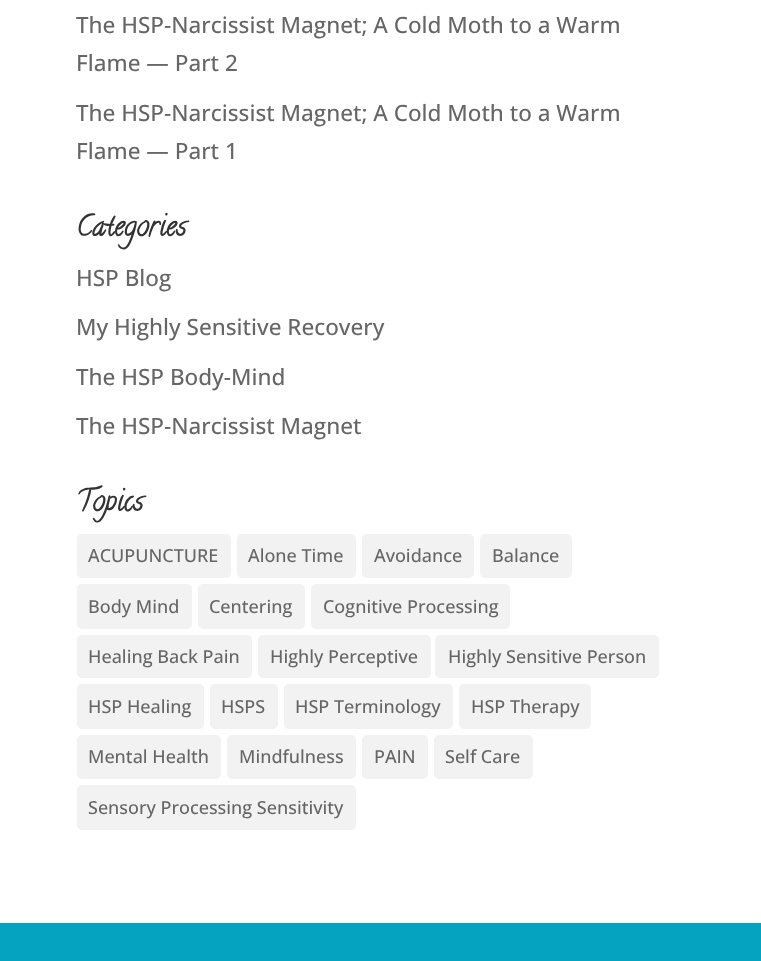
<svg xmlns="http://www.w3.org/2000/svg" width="761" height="961">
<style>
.a{font:500 22.5px Open Sans;fill:#666}
.b{font:bold 28.5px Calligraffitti;fill:#333}
.c{font:500 18px Open Sans;fill:#666}
</style>
<rect width="100%" height="100%" fill="#fff"/>
<rect fill="#f2f2f2" x="77" y="534" width="154" height="44" rx="5"/>
<rect fill="#f2f2f2" x="237" y="534" width="119" height="44" rx="5"/>
<rect fill="#f2f2f2" x="362" y="534" width="112" height="44" rx="5"/>
<rect fill="#f2f2f2" x="480" y="534" width="92" height="44" rx="5"/>
<rect fill="#f2f2f2" x="77" y="584" width="115" height="45" rx="5"/>
<rect fill="#f2f2f2" x="198" y="584" width="107" height="45" rx="5"/>
<rect fill="#f2f2f2" x="311" y="584" width="199" height="45" rx="5"/>
<rect fill="#f2f2f2" x="77" y="635" width="175" height="43" rx="5"/>
<rect fill="#f2f2f2" x="258" y="635" width="173" height="43" rx="5"/>
<rect fill="#f2f2f2" x="435" y="635" width="224" height="43" rx="5"/>
<rect fill="#f2f2f2" x="77" y="684" width="127" height="45" rx="5"/>
<rect fill="#f2f2f2" x="210" y="684" width="68" height="45" rx="5"/>
<rect fill="#f2f2f2" x="284" y="684" width="169" height="45" rx="5"/>
<rect fill="#f2f2f2" x="459" y="684" width="132" height="45" rx="5"/>
<rect fill="#f2f2f2" x="77" y="735" width="144" height="44" rx="5"/>
<rect fill="#f2f2f2" x="227" y="735" width="129" height="44" rx="5"/>
<rect fill="#f2f2f2" x="362" y="735" width="66" height="44" rx="5"/>
<rect fill="#f2f2f2" x="434" y="735" width="99" height="44" rx="5"/>
<rect fill="#f2f2f2" x="77" y="785" width="279" height="45" rx="5"/>
<path fill="#06a3c0" d="M0 923h761v38H0z"/>
<text class="a" x="76" y="33">The HSP-Narcissist Magnet; A Cold Moth to a Warm</text>
<text class="a" x="76" y="71">Flame — Part 2</text>
<text class="a" x="76" y="121">The HSP-Narcissist Magnet; A Cold Moth to a Warm</text>
<text class="a" x="76" y="159">Flame — Part 1</text>
<text class="b" x="76" y="235">Categories</text>
<text class="a" x="76" y="286">HSP Blog</text>
<text class="a" x="76" y="335">My Highly Sensitive Recovery</text>
<text class="a" x="76" y="385">The HSP Body-Mind</text>
<text class="a" x="76" y="434">The HSP-Narcissist Magnet</text>
<text class="b" x="76" y="510">Topics</text>
<text class="c" x="88" y="562">ACUPUNCTURE</text>
<text class="c" x="248" y="562">Alone Time</text>
<text class="c" x="374" y="562">Avoidance</text>
<text class="c" x="492" y="562">Balance</text>
<text class="c" x="88" y="613">Body Mind</text>
<text class="c" x="209" y="613">Centering</text>
<text class="c" x="323" y="613">Cognitive Processing</text>
<text class="c" x="88" y="663">Healing Back Pain</text>
<text class="c" x="270" y="663">Highly Perceptive</text>
<text class="c" x="448" y="663">Highly Sensitive Person</text>
<text class="c" x="88" y="713">HSP Healing</text>
<text class="c" x="221" y="713">HSPS</text>
<text class="c" x="295" y="713">HSP Terminology</text>
<text class="c" x="471" y="713">HSP Therapy</text>
<text class="c" x="88" y="763">Mental Health</text>
<text class="c" x="239" y="763">Mindfulness</text>
<text class="c" x="374" y="763">PAIN</text>
<text class="c" x="445" y="763">Self Care</text>
<text class="c" x="88" y="814">Sensory Processing Sensitivity</text>
</svg>
